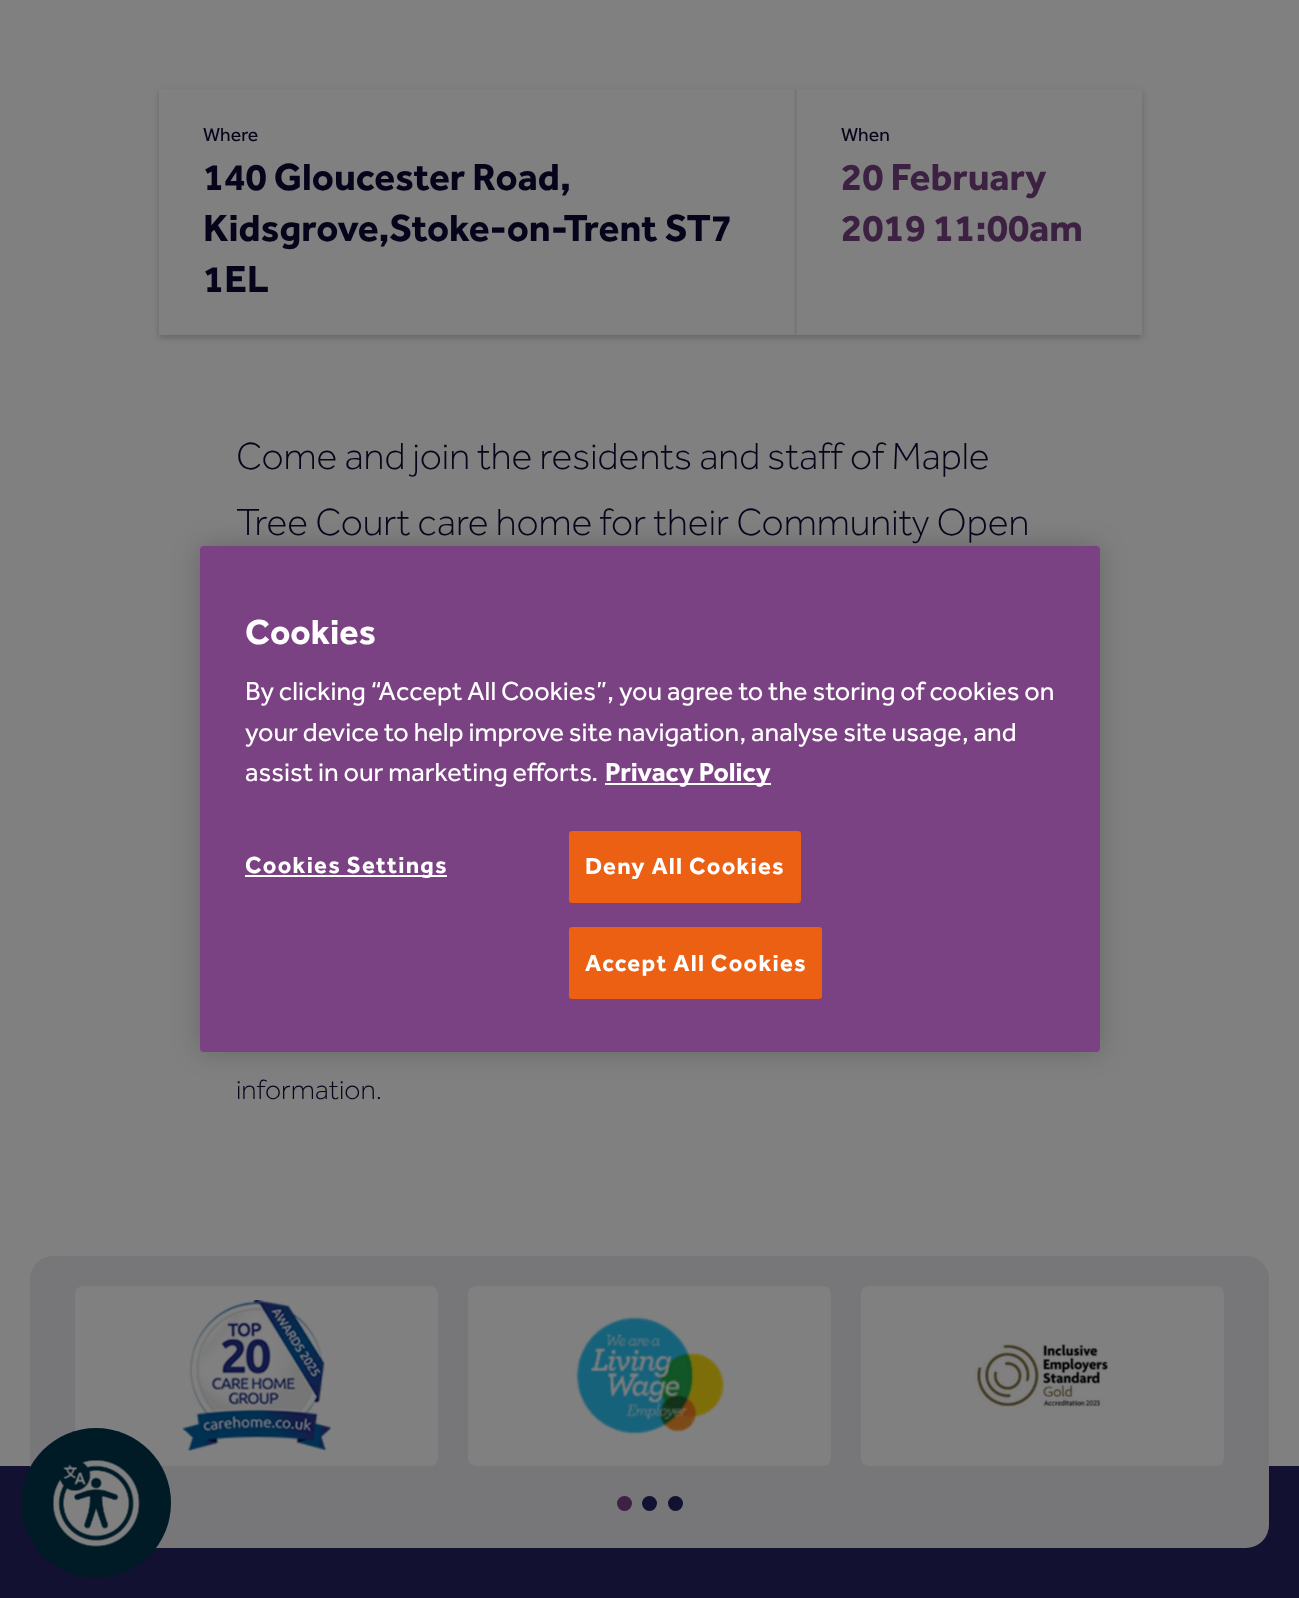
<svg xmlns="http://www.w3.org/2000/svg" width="1299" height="1598">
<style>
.a{font:19.5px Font;fill:#05041a}
.b{font:bold 39px Font;fill:#05041a}
.c{font:bold 39px Font;fill:#3d2142}
.d{font:300 39px Font;fill:#05041a}
.e{font:300 28.5px Font;fill:#05041a}
.f{font:bold 36px Font;fill:#fff}
.g{font:27px Font;fill:#fff}
.h{font:bold 27px Font;fill:#fff}
.i{font:bold 24px Font;letter-spacing:1.25px;fill:#fff}
</style>
<rect width="100%" height="100%" fill="#808080"/>
<path fill="#00000033" filter="blur(3px)" d="M159 92h983v246H159z"/>
<path fill="#808080" d="M159 89h983v246H159z"/>
<path fill="#797879" d="M794 89h3v246H794z"/>
<path fill="#131131" d="M0 1466h1299v132H0z"/>
<rect fill="#77777a" x="30" y="1256" width="1239" height="292" rx="23"/>
<rect fill="#808080" x="75" y="1286" width="363" height="180" rx="8"/>
<image href="1.png" x="182" y="1300" width="149" height="151"/>
<rect fill="#808080" x="468" y="1286" width="363" height="180" rx="8"/>
<image href="2.png" x="575" y="1316" width="150" height="119"/>
<rect fill="#808080" x="861" y="1286" width="363" height="180" rx="8"/>
<image href="3.png" x="975" y="1344" width="133" height="63"/>
<circle fill="#3d2142" cx="624.5" cy="1503.5" r="7.5"/>
<circle fill="#131131" cx="649.5" cy="1503.5" r="7.5"/>
<circle fill="#131131" cx="675.5" cy="1503.5" r="7.5"/>
<rect fill="#00000033" filter="blur(13.5px)" x="200" y="546" width="900" height="506" rx="4"/>
<rect fill="#7a4183" x="200" y="546" width="900" height="506" rx="4"/>
<path fill="#fff" d="M605 783h166v2H605z"/>
<path fill="#fff" d="M245 875h202v2H245z"/>
<rect fill="#eb6012" stroke="#eb6012" stroke-width="2" x="570" y="832" width="230" height="70" rx="2"/>
<rect fill="#eb6012" stroke="#eb6012" stroke-width="2" x="570" y="928" width="251" height="70" rx="2"/>
<circle fill="#001a26" cx="96" cy="1503" r="75"/>
<image href="4.png" x="53" y="1460" width="87" height="87"/>
<text class="a" x="203" y="141">Where</text>
<text class="b" x="203" y="190">140 Gloucester Road,</text>
<text class="b" x="203" y="241">Kidsgrove,Stoke-on-Trent ST7</text>
<text class="b" x="203" y="292">1EL</text>
<text class="a" x="841" y="141">When</text>
<text class="c" x="841" y="190">20 February</text>
<text class="c" x="841" y="241">2019 11:00am</text>
<text class="d" x="236" y="469">Come and join the residents and staff of Maple</text>
<text class="d" x="236" y="535">Tree Court care home for their Community Open</text>
<text class="e" x="236" y="1099">information.</text>
<text class="f" x="245" y="644">Cookies</text>
<text class="g" x="245" y="700">By clicking “Accept All Cookies”, you agree to the storing of cookies on</text>
<text class="g" x="245" y="741">your device to help improve site navigation, analyse site usage, and</text>
<text class="g" x="245" y="781">assist in our marketing efforts.</text>
<text class="h" x="605" y="781">Privacy Policy</text>
<text class="i" x="245" y="873">Cookies Settings</text>
<text class="i" x="585" y="874">Deny All Cookies</text>
<text class="i" x="585" y="971">Accept All Cookies</text>
</svg>
